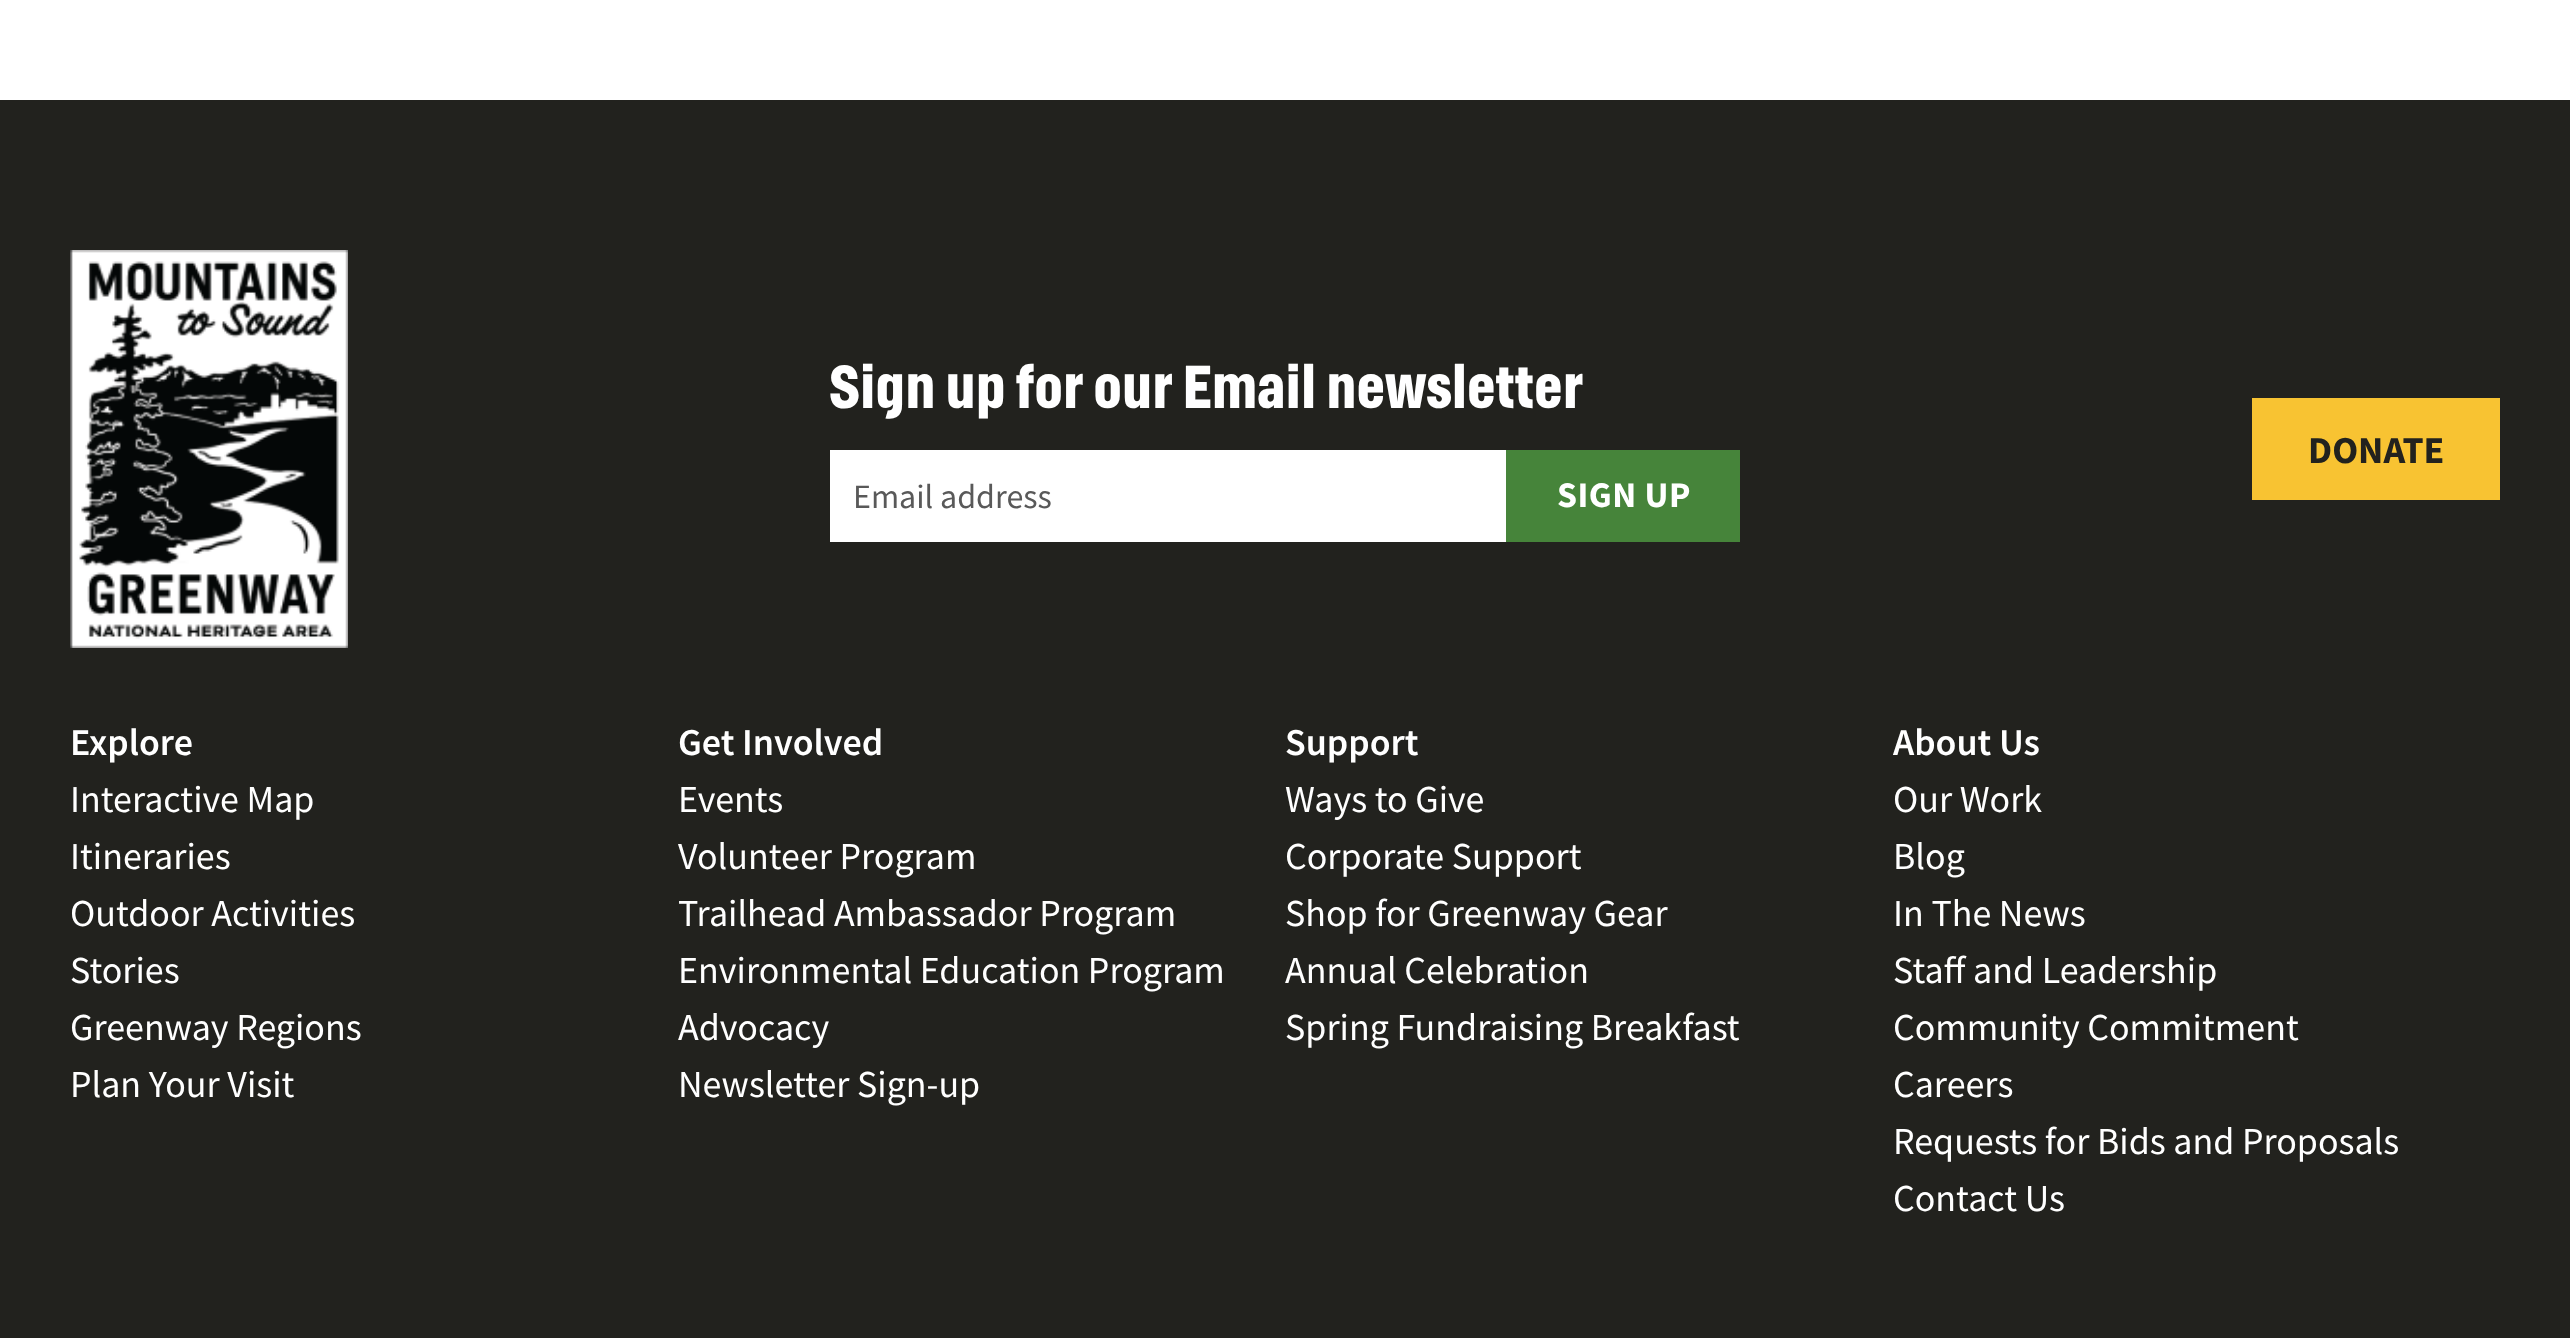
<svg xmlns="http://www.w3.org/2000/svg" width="2570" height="1338">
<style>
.a{font:bold 60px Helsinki;fill:#fff}
.b{font:34px Source Sans Pro;fill:#595959}
.c{font:bold 36px Source Sans Pro;letter-spacing:0.5px;fill:#fff}
.d{font:bold 38px Source Sans Pro;fill:#22221e}
.e{font:600 38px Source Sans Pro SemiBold;fill:#fff}
.f{font:38px Source Sans Pro;fill:#fff}
</style>
<rect width="100%" height="100%" fill="#fff"/>
<path fill="#22221e" d="M0 100h2570v1238H0z"/>
<image href="1.png" x="70" y="250" width="278" height="398"/>
<path fill="#fff" d="M830 450h676v92H830z"/>
<path fill="#46843a" d="M1506 450h234v92H1506z"/>
<path fill="#f8c332" d="M2252 398h248v102H2252z"/>
<text class="a" x="829" y="408">Sign up for our Email newsletter</text>
<text class="b" x="853" y="508">Email address</text>
<text class="c" x="1557" y="507">SIGN UP</text>
<text class="d" x="2308" y="463">DONATE</text>
<text class="e" x="70" y="755">Explore</text>
<text class="f" x="70" y="812">Interactive Map</text>
<text class="f" x="70" y="869">Itineraries</text>
<text class="f" x="70" y="926">Outdoor Activities</text>
<text class="f" x="70" y="983">Stories</text>
<text class="f" x="70" y="1040">Greenway Regions</text>
<text class="f" x="70" y="1097">Plan Your Visit</text>
<text class="e" x="678" y="755">Get Involved</text>
<text class="f" x="678" y="812">Events</text>
<text class="f" x="678" y="869">Volunteer Program</text>
<text class="f" x="678" y="926">Trailhead Ambassador Program</text>
<text class="f" x="678" y="983">Environmental Education Program</text>
<text class="f" x="678" y="1040">Advocacy</text>
<text class="f" x="678" y="1097">Newsletter Sign-up</text>
<text class="e" x="1285" y="755">Support</text>
<text class="f" x="1285" y="812">Ways to Give</text>
<text class="f" x="1285" y="869">Corporate Support</text>
<text class="f" x="1285" y="926">Shop for Greenway Gear</text>
<text class="f" x="1285" y="983">Annual Celebration</text>
<text class="f" x="1285" y="1040">Spring Fundraising Breakfast</text>
<text class="e" x="1893" y="755">About Us</text>
<text class="f" x="1893" y="812">Our Work</text>
<text class="f" x="1893" y="869">Blog</text>
<text class="f" x="1893" y="926">In The News</text>
<text class="f" x="1893" y="983">Staff and Leadership</text>
<text class="f" x="1893" y="1040">Community Commitment</text>
<text class="f" x="1893" y="1097">Careers</text>
<text class="f" x="1893" y="1154">Requests for Bids and Proposals</text>
<text class="f" x="1893" y="1211">Contact Us</text>
</svg>
